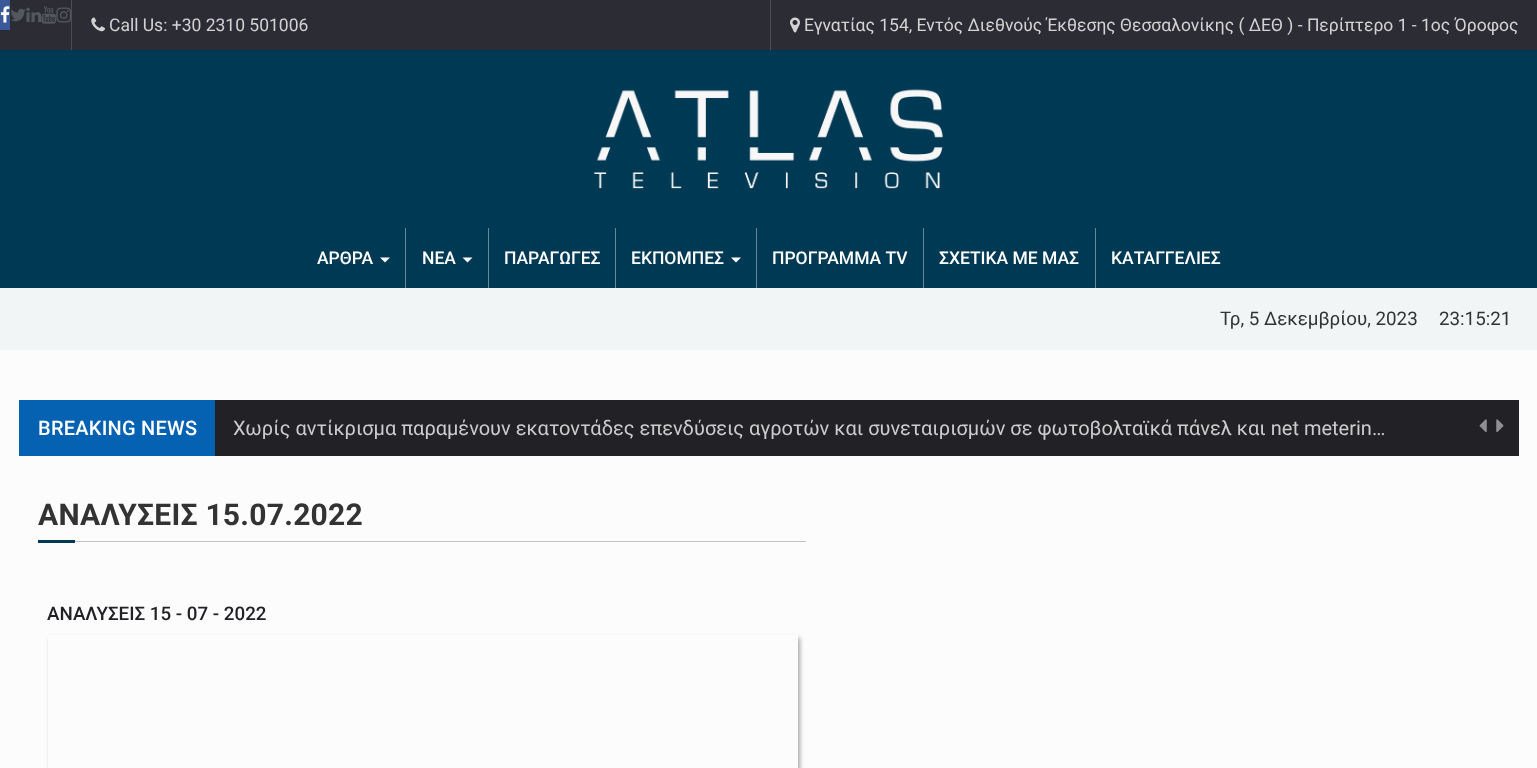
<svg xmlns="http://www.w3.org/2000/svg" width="1537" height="768">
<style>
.a{font:17.5px Roboto;fill:#d4d2d4}
.b{font:500 17.5px Roboto;fill:#fff}
.c{font:18.75px Roboto;fill:#333}
.d{font:500 20px Roboto;letter-spacing:0.25px;fill:#fff}
.e{font:20px Roboto;fill:#ccc}
.f{font:bold 30px Roboto;letter-spacing:0.25px;fill:#333}
.g{font:500 18.75px Roboto;fill:#212126}
</style>
<defs>
<clipPath id="clip1"><path d="M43 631h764v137h-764zm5 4h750v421h-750z" clip-rule="evenodd"/></clipPath>
</defs>
<rect width="100%" height="100%" fill="#fcfcfc"/>
<path fill="#003954" d="M0 50h1537v238H0z"/>
<path fill="#2c2c34" d="M0 0h1537v50H0z"/>
<path fill="#3b5998" d="M0 0h10v30H0z"/>
<image href="1.png" x="0" y="6" width="10" height="17"/>
<image href="2.png" x="11" y="8" width="15" height="14"/>
<image href="3.png" x="26" y="7" width="16" height="15"/>
<image href="4.png" x="41" y="6" width="15" height="18"/>
<image href="5.png" x="56" y="7" width="15" height="16"/>
<path fill="#4c4c59" d="M71 0h1v50H71z"/>
<image href="6.png" x="91" y="17" width="14" height="15"/>
<path fill="#4c4c59" d="M770 0h1v50H770z"/>
<image href="7.png" x="790" y="17" width="10" height="16"/>
<image href="8.png" x="593" y="89" width="350" height="100"/>
<path fill="#fff" d="M380 257.5h10l-5 5z"/>
<path fill="#668898" d="M405 228h1v60H405z"/>
<path fill="#fff" d="M462.5 257.5h10l-5 5z"/>
<path fill="#668898" d="M488 228h1v60H488z"/>
<path fill="#668898" d="M615 228h1v60H615z"/>
<path fill="#fff" d="M731 257.5h10l-5 5z"/>
<path fill="#668898" d="M756 228h1v60H756z"/>
<path fill="#668898" d="M923 228h1v60H923z"/>
<path fill="#668898" d="M1095 228h1v60H1095z"/>
<path fill="#f2f5f6" d="M0 288h1537v62H0z"/>
<path fill="#0562b3" d="M19 400h196v56H19z"/>
<path fill="#212126" d="M215 400h1304v56H215z"/>
<image href="9.png" x="1479" y="419" width="8" height="13"/>
<image href="10.png" x="1496" y="419" width="8" height="13"/>
<path fill="#003954" d="M38 540h37v3H38z"/>
<path fill="#c1c1c1" d="M75 541h731v1H75z"/>
<g clip-path="url(#clip1)">
<path fill="#0a0a0a59" filter="blur(2px)" d="M50 638h750v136H50z"/>
</g>
<text class="a" x="109" y="31">Call Us: +30 2310 501006</text>
<text class="a" x="804" y="31">Εγνατίας 154, Εντός Διεθνούς Έκθεσης Θεσσαλονίκης ( ΔΕΘ ) - Περίπτερο 1 - 1ος Όροφος</text>
<text class="b" x="317" y="264">ΑΡΘΡΑ</text>
<text class="b" x="422" y="264">ΝΕΑ</text>
<text class="b" x="504" y="264">ΠΑΡΑΓΩΓΕΣ</text>
<text class="b" x="631" y="264">ΕΚΠΟΜΠΕΣ</text>
<text class="b" x="772" y="264">ΠΡΟΓΡΑΜΜΑ TV</text>
<text class="b" x="939" y="264">ΣΧΕΤΙΚΑ ΜΕ ΜΑΣ</text>
<text class="b" x="1111" y="264">ΚΑΤΑΓΓΕΛΙΕΣ</text>
<text class="c" x="1220" y="325">Τρ, 5 Δεκεμβρίου, 2023</text>
<text class="c" x="1439" y="325">23:15:21</text>
<text class="d" x="38" y="435">BREAKING NEWS</text>
<text class="e" x="233" y="435">Χωρίς αντίκρισµα παραµένουν εκατοντάδες επενδύσεις αγροτών και συνεταιρισµών σε φωτοβολταϊκά πάνελ και net meterin…</text>
<text class="f" x="38" y="525">ΑΝΑΛΥΣΕΙΣ 15.07.2022</text>
<text class="g" x="47" y="620">ΑΝΑΛΥΣΕΙΣ 15 - 07 - 2022</text>
</svg>
